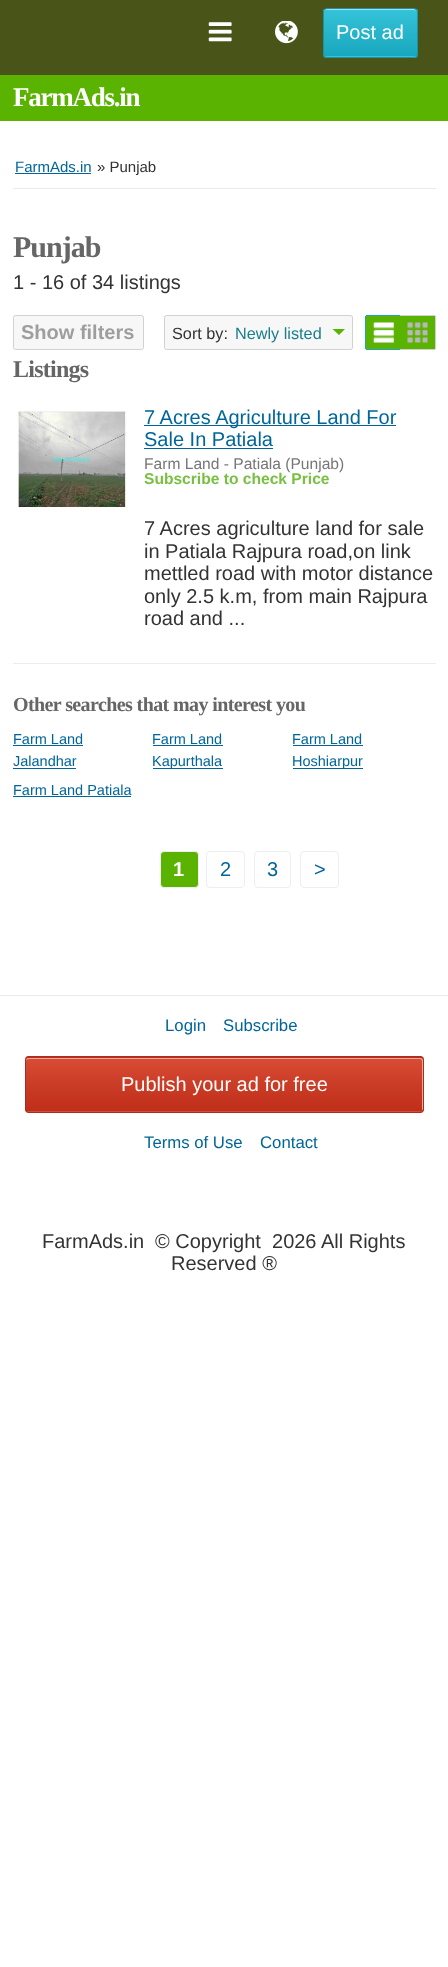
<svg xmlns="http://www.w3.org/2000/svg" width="448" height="1967">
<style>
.a{font:20px Liberation Sans;fill:#fff}
.b{font:bold 27px Liberation Serif;letter-spacing:-1.25px;fill:#fff}
.c{font:15px Liberation Sans;fill:#069}
.d{font:15px Liberation Sans;fill:#333}
.e{font:bold 30px Liberation Serif;letter-spacing:-1px;fill:#666}
.f{font:20px Liberation Sans;fill:#333}
.g{font:bold 20px Liberation Sans;fill:#9e9e9e}
.h{font:16.25px Liberation Sans;fill:#333}
.i{font:16.25px Liberation Sans;fill:#1b7e8d}
.j{font:bold 24px Liberation Serif;letter-spacing:-0.75px;fill:#666}
.k{font:20px Liberation Sans;fill:#069}
.l{font:15.6px Liberation Sans;fill:#777}
.m{font:bold 15.6px Liberation Sans;fill:#78c042}
.n{font:bold 20px Liberation Serif;letter-spacing:-0.6px;fill:#666}
.o{font:14.5px Liberation Sans;fill:#069}
.p{font:bold 20px Liberation Sans;fill:#fff}
.q{font:16.75px Liberation Sans;fill:#069}
</style>
<defs>
<clipPath id="clip1"><rect x="323" y="8" width="95" height="50" rx="4"/></clipPath>
<linearGradient id="g1" gradientUnits="userSpaceOnUse" x1="370" y1="9" x2="370" y2="56"><stop offset="0" stop-color="#35c3d9"/><stop offset="1" stop-color="#18a7be"/></linearGradient>
<linearGradient id="g2" gradientUnits="userSpaceOnUse" x1="370" y1="56" x2="370" y2="104"><stop offset="0" stop-color="#35c3d9"/><stop offset="1" stop-color="#18a7be"/></linearGradient>
<clipPath id="clip2"><rect x="25" y="1056" width="399" height="57" rx="4"/></clipPath>
<linearGradient id="g3" gradientUnits="userSpaceOnUse" x1="224" y1="1004" x2="224" y2="1058"><stop offset="0" stop-color="#d94b35"/><stop offset="1" stop-color="#be2e18"/></linearGradient>
<linearGradient id="g4" gradientUnits="userSpaceOnUse" x1="224" y1="1058" x2="224" y2="1111"><stop offset="0" stop-color="#d94b35"/><stop offset="1" stop-color="#be2e18"/></linearGradient>
<linearGradient id="g5" gradientUnits="userSpaceOnUse" x1="224" y1="1111" x2="224" y2="1165"><stop offset="0" stop-color="#d94b35"/><stop offset="1" stop-color="#be2e18"/></linearGradient>
</defs>
<rect width="100%" height="100%" fill="#fff"/>
<path fill="#5ab300" d="M0 75h448v46H0z"/>
<path fill="#495418" d="M0 0h448v75H0z"/>
<image href="1.png" x="208" y="22" width="24" height="20"/>
<image href="2.png" x="275" y="21" width="23" height="23"/>
<g clip-path="url(#clip1)">
<path fill="url(#g1)" d="M323 9h95v47H323z"/>
<path fill="url(#g2)" d="M323 56h95v2H323z"/>
</g>
<path fill="#a0e3ed" d="M326 10h88c1 0 2 1 2 2c0-1-1-3-2-3h-88c-1 0-2 2-2 3c0-1 1-2 2-2z"/>
<rect fill="none" stroke="#1f91a3" x="323.5" y="8.5" width="94" height="49" rx="3.5"/>
<path fill="#eaeaea" d="M13 188h423v1H13z"/>
<path fill="#069" d="M15 173h76v1H15z"/>
<rect fill="#f7f7f7" stroke="#d1d1d1" x="13.5" y="315.5" width="130" height="34" rx="2"/>
<rect fill="#f7f7f7" stroke="#d1d1d1" x="164.5" y="315.5" width="188" height="34" rx="2"/>
<path fill="#5ab300" d="M332.5 329h12.5l-6 6z"/>
<path fill="#5ab300" d="M367.5 315h33.5v35h-33.5c-1.5 0-2.5-1-2.5-2.5v-30c0-1.5 1-2.5 2.5-2.5z"/>
<path fill="#23a4b8" d="M366 315h35v1H366z"/>
<path fill="#23a4b8" d="M366 349h35v1H366z"/>
<path fill="#23a4b8" d="M365 316h1v33H365z"/>
<image href="3.png" x="373" y="322" width="21" height="21"/>
<path fill="#5ab300" d="M400 315h33.5c1.5 0 2.5 1 2.5 2.5v30c0 1.5-1 2.5-2.5 2.5h-33.5z"/>
<path fill="#d1d1d1" d="M400 315h35v1H400z"/>
<path fill="#d1d1d1" d="M435 316h1v33H435z"/>
<path fill="#d1d1d1" d="M400 349h35v1H400z"/>
<image href="4.png" x="407" y="322" width="21" height="21"/>
<path fill="#ececec" d="M13 663h423v1H13z"/>
<image href="5.png" x="17" y="410" width="110" height="99"/>
<path fill="#069" d="M144 425h252v1H144z"/>
<path fill="#069" d="M144 448h129v1H144z"/>
<path fill="#069" d="M13 745h70v1H13z"/>
<path fill="#069" d="M13 768h63v1H13z"/>
<path fill="#069" d="M153 745h70v1H153z"/>
<path fill="#069" d="M153 768h70v1H153z"/>
<path fill="#069" d="M293 745h70v1H293z"/>
<path fill="#069" d="M293 768h70v1H293z"/>
<path fill="#069" d="M13 796h118v1H13z"/>
<rect fill="#5ab300" stroke="#eee" x="160.5" y="851.5" width="38" height="36" rx="3.5"/>
<rect fill="none" stroke="#eee" x="206.5" y="851.5" width="38" height="36" rx="3.5"/>
<rect fill="none" stroke="#eee" x="254.5" y="851.5" width="36" height="36" rx="3.5"/>
<rect fill="none" stroke="#eee" x="300.5" y="851.5" width="38" height="36" rx="3.5"/>
<path fill="#eaeaea" d="M0 995h448v1H0z"/>
<g clip-path="url(#clip2)">
<path fill="url(#g3)" d="M25 1056h399v2H25z"/>
<path fill="url(#g4)" d="M25 1058h399v53H25z"/>
<path fill="url(#g5)" d="M25 1111h399v2H25z"/>
</g>
<path fill="#edaba0" d="M29 1059h391c1 0 2 1 2 2v50c1-1 1-2 1-3v-48c0-1-1-2-3-2h-392c-1 0-2 1-2 2v1c0-1 1-2 3-2z"/>
<rect fill="none" stroke="#a3301f" x="25.5" y="1056.5" width="398" height="56" rx="3.5"/>
<text class="a" x="336" y="39">Post ad</text>
<text class="b" x="13" y="106">FarmAds.in</text>
<text class="c" x="15" y="172">FarmAds.in</text>
<text class="d" x="97" y="172">» Punjab</text>
<text class="e" x="13" y="257">Punjab</text>
<text class="f" x="13" y="289">1 - 16 of 34 listings</text>
<text class="g" x="21" y="339">Show filters</text>
<text class="h" x="172" y="339">Sort by:</text>
<text class="i" x="235" y="339">Newly listed</text>
<text class="j" x="13" y="377">Listings</text>
<text class="k" x="144" y="424">7 Acres Agriculture Land For</text>
<text class="k" x="144" y="446">Sale In Patiala</text>
<text class="l" x="144" y="469">Farm Land - Patiala (Punjab)</text>
<text class="m" x="144" y="484">Subscribe to check Price</text>
<text class="f" x="144" y="535">7 Acres agriculture land for sale</text>
<text class="f" x="144" y="558">in Patiala Rajpura road,on link</text>
<text class="f" x="144" y="580">mettled road with motor distance</text>
<text class="f" x="144" y="603">only 2.5 k.m, from main Rajpura</text>
<text class="f" x="144" y="625">road and ...</text>
<text class="n" x="13" y="711">Other searches that may interest you</text>
<text class="o" x="13" y="744">Farm Land</text>
<text class="o" x="13" y="766">Jalandhar</text>
<text class="o" x="152" y="744">Farm Land</text>
<text class="o" x="152" y="766">Kapurthala</text>
<text class="o" x="292" y="744">Farm Land</text>
<text class="o" x="292" y="766">Hoshiarpur</text>
<text class="o" x="13" y="795">Farm Land Patiala</text>
<text class="p" x="173" y="876">1</text>
<text class="k" x="220" y="876">2</text>
<text class="k" x="267" y="876">3</text>
<text class="k" x="314" y="876">&gt;</text>
<text class="q" x="165" y="1031">Login</text>
<text class="q" x="223" y="1031">Subscribe</text>
<text class="a" x="121" y="1091">Publish your ad for free</text>
<text class="q" x="144" y="1148">Terms of Use</text>
<text class="q" x="260" y="1148">Contact</text>
<text class="f" x="42" y="1248">FarmAds.in</text>
<text class="f" xml:space="preserve" x="155" y="1248">© Copyright  2026 All Rights</text>
<text class="f" x="171" y="1270">Reserved ®</text>
</svg>
